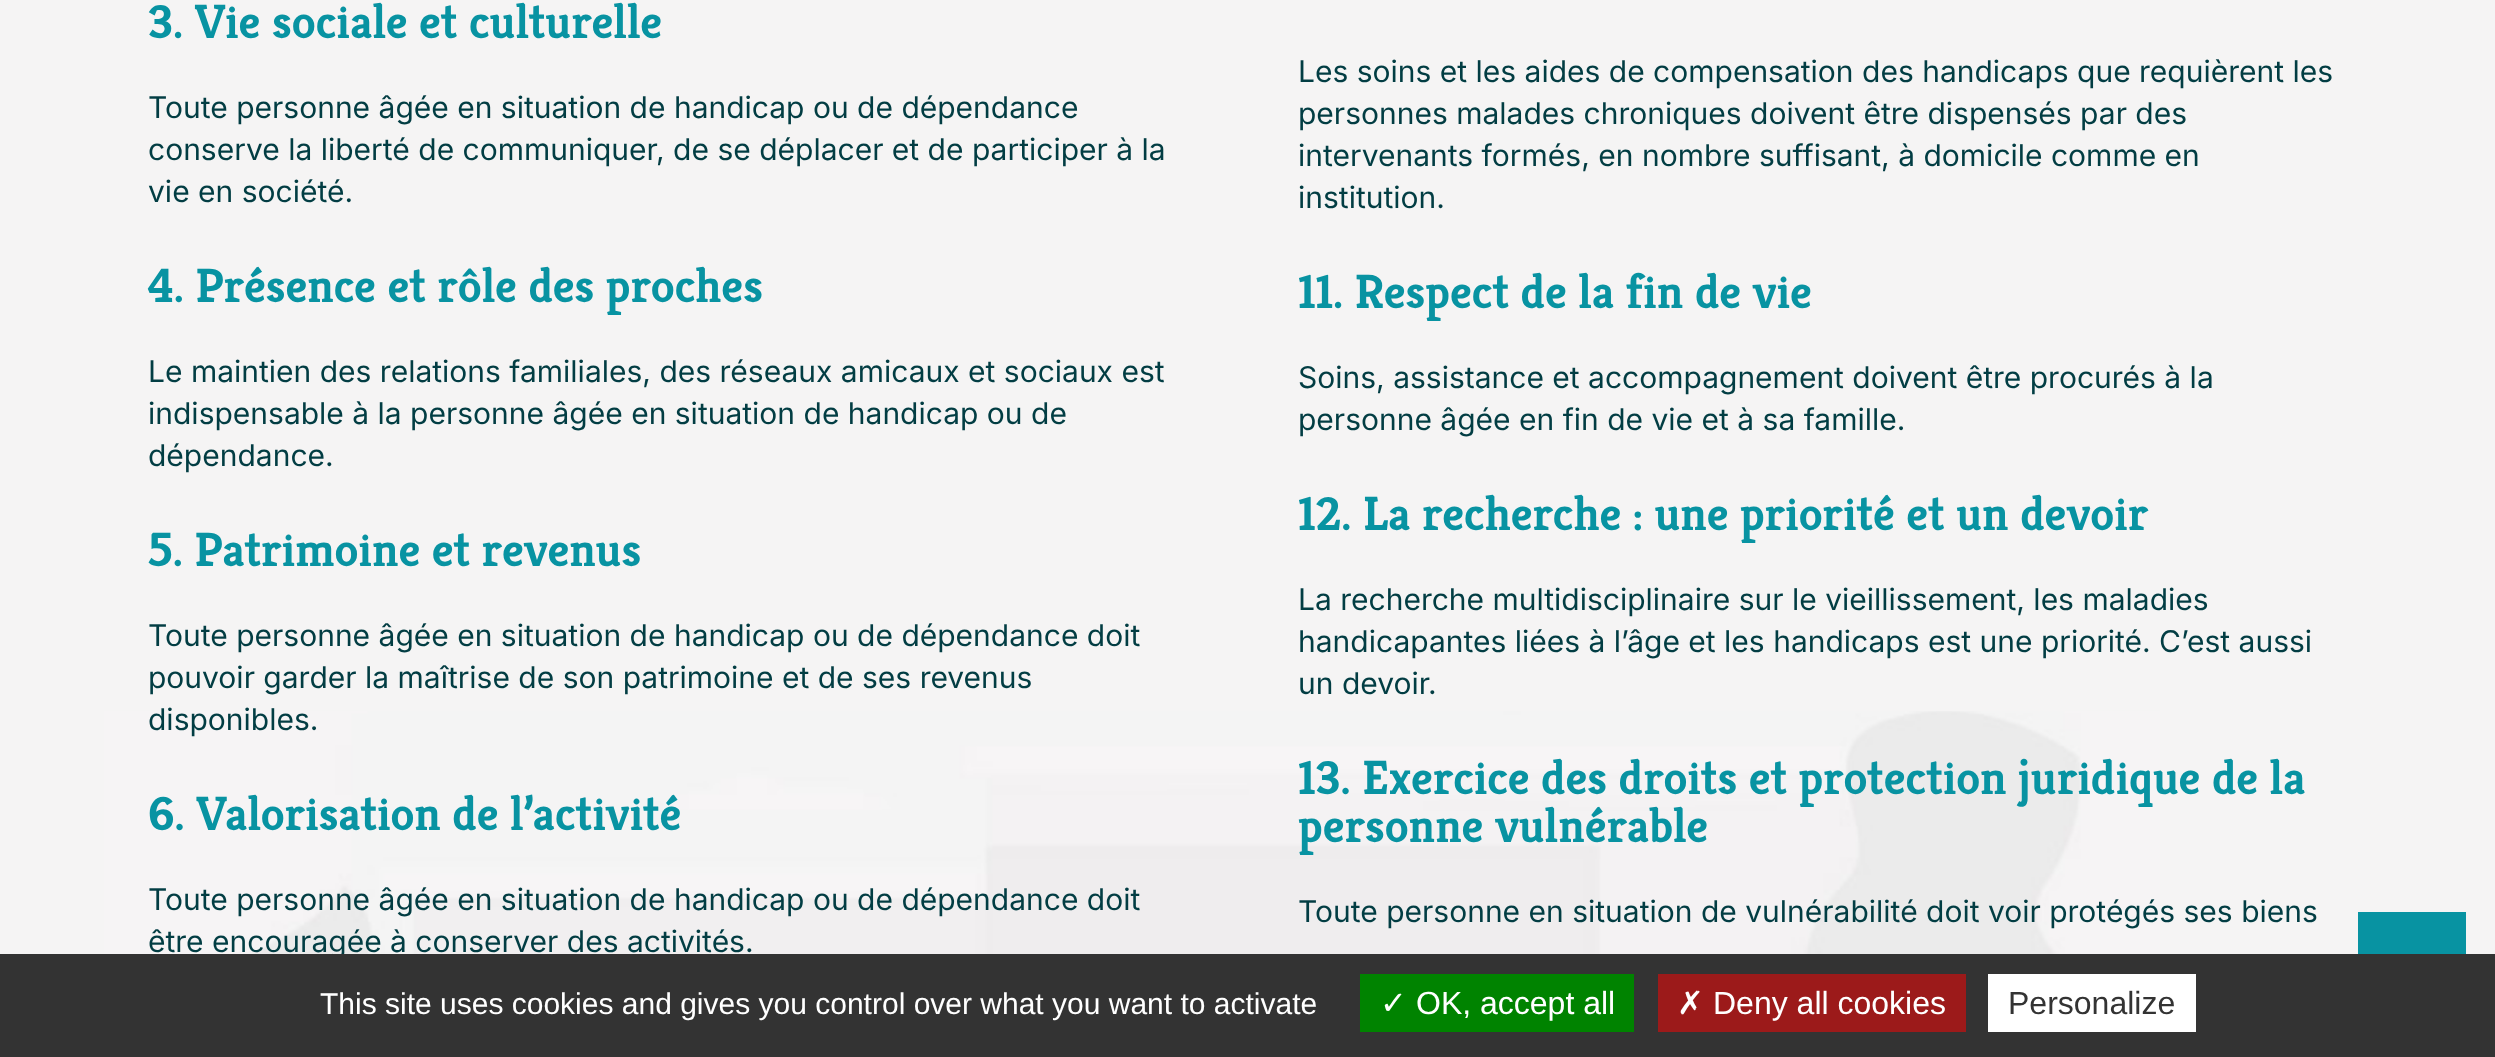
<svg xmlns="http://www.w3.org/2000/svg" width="2495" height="1057">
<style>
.a{font:300 48px Kreon;fill:#0893a2}
.b{font:30px Inter;fill:#023d43}
.c{font:30px Liberation Sans;fill:#fff}
.d{font:32px DejaVu Sans;fill:#fff}
.e{font:32px Liberation Sans;fill:#fff}
.f{font:32px Liberation Sans;fill:#333}
</style>
<rect width="100%" height="100%" fill="#f5f4f4"/>
<image href="1.png" x="104" y="711" width="2056" height="243"/>
<path fill="#0893a2" d="M2358 912h108v42H2358z"/>
<text class="a" x="148" y="38">3. Vie sociale et culturelle</text>
<text class="b" x="148" y="118">Toute personne âgée en situation de handicap ou de dépendance</text>
<text class="b" x="148" y="160">conserve la liberté de communiquer, de se déplacer et de participer à la</text>
<text class="b" x="148" y="202">vie en société.</text>
<text class="a" x="148" y="302">4. Présence et rôle des proches</text>
<text class="b" x="148" y="382">Le maintien des relations familiales, des réseaux amicaux et sociaux est</text>
<text class="b" x="148" y="424">indispensable à la personne âgée en situation de handicap ou de</text>
<text class="b" x="148" y="466">dépendance.</text>
<text class="a" x="148" y="566">5. Patrimoine et revenus</text>
<text class="b" x="148" y="646">Toute personne âgée en situation de handicap ou de dépendance doit</text>
<text class="b" x="148" y="688">pouvoir garder la maîtrise de son patrimoine et de ses revenus</text>
<text class="b" x="148" y="730">disponibles.</text>
<text class="a" x="148" y="830">6. Valorisation de l’activité</text>
<text class="b" x="148" y="910">Toute personne âgée en situation de handicap ou de dépendance doit</text>
<text class="b" x="148" y="952">être encouragée à conserver des activités.</text>
<text class="b" x="1298" y="82">Les soins et les aides de compensation des handicaps que requièrent les</text>
<text class="b" x="1298" y="124">personnes malades chroniques doivent être dispensés par des</text>
<text class="b" x="1298" y="166">intervenants formés, en nombre suffisant, à domicile comme en</text>
<text class="b" x="1298" y="208">institution.</text>
<text class="a" x="1298" y="308">11. Respect de la fin de vie</text>
<text class="b" x="1298" y="388">Soins, assistance et accompagnement doivent être procurés à la</text>
<text class="b" x="1298" y="430">personne âgée en fin de vie et à sa famille.</text>
<text class="a" x="1298" y="530">12. La recherche : une priorité et un devoir</text>
<text class="b" x="1298" y="610">La recherche multidisciplinaire sur le vieillissement, les maladies</text>
<text class="b" x="1298" y="652">handicapantes liées à l’âge et les handicaps est une priorité. C’est aussi</text>
<text class="b" x="1298" y="694">un devoir.</text>
<text class="a" x="1298" y="794">13. Exercice des droits et protection juridique de la</text>
<text class="a" x="1298" y="842">personne vulnérable</text>
<text class="b" x="1298" y="922">Toute personne en situation de vulnérabilité doit voir protégés ses biens</text>
<path fill="#333" d="M0 954h2495v103H0z"/>
<text class="c" x="320" y="1014">This site uses cookies and gives you control over what you want to activate</text>
<path fill="#008300" d="M1360 974h274v58H1360z"/>
<text class="d" x="1380" y="1014">✓</text>
<text class="e" x="1416" y="1014">OK, accept all</text>
<path fill="#9c1a1a" d="M1658 974h308v58H1658z"/>
<text class="d" x="1677" y="1014">✗</text>
<text class="e" x="1713" y="1014">Deny all cookies</text>
<path fill="#fff" d="M1988 974h208v58H1988z"/>
<text class="f" x="2008" y="1014">Personalize</text>
</svg>
